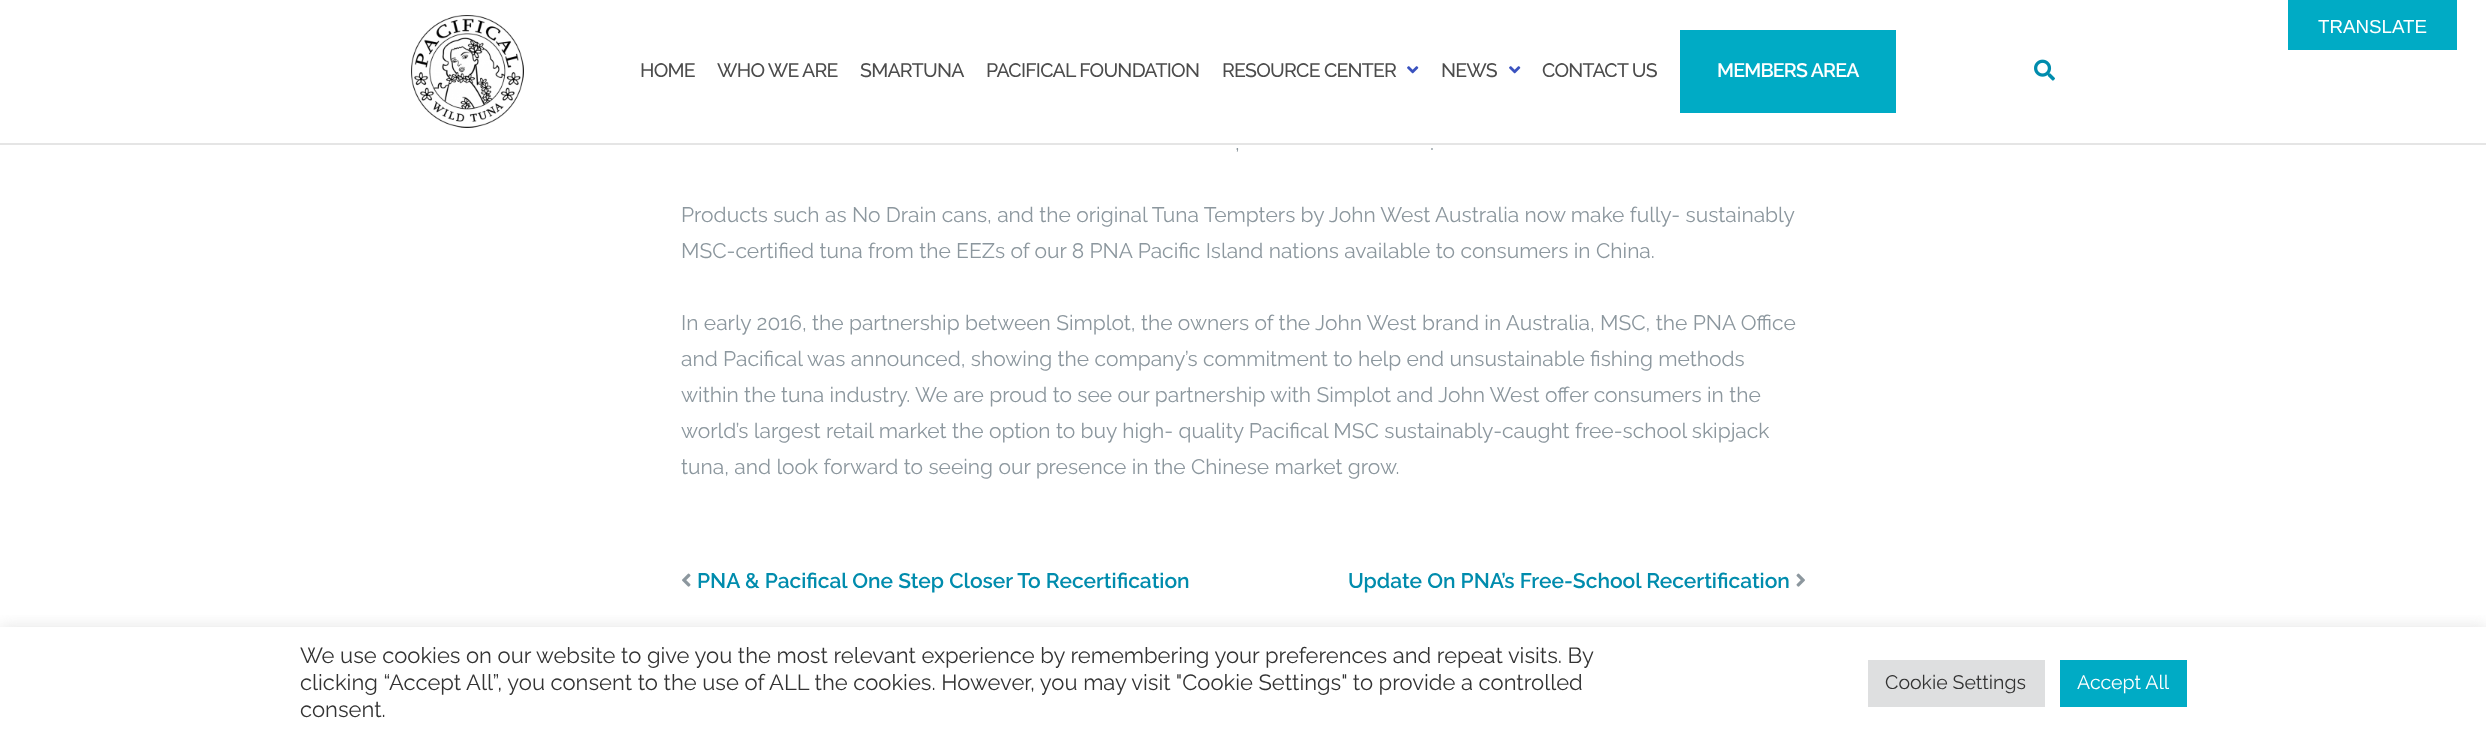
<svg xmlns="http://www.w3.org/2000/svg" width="2486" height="738">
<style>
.a{font:18.75px Liberation Sans;fill:#fff}
.b{font:500 19.5px Raleway;letter-spacing:-0.75px;fill:#4c4c4c}
.c{font:600 19.5px Raleway;letter-spacing:-0.75px;fill:#fff}
.d{font:21px Raleway;fill:#8c979e}
.e{font:600 21px Raleway;fill:#008cad}
.f{font:22px Raleway;fill:#333}
.g{font:19.5px Raleway;fill:#333}
.h{font:19.5px Raleway;fill:#fff}
</style>
<defs>
<clipPath id="clip1"><path d="M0 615h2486v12H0z"/></clipPath>
</defs>
<rect width="100%" height="100%" fill="#fff"/>
<path fill="#00abc5" d="M2288 0h169v50H2288z"/>
<path fill="#0000001a" d="M0 143h2486v2H0z"/>
<image href="1.png" x="411" y="15" width="113" height="113"/>
<image href="2.png" x="1407" y="66" width="12" height="8"/>
<image href="2.png" x="1509" y="66" width="12" height="8"/>
<path fill="#00abc5" d="M1680 30h216v83H1680z"/>
<image href="3.png" x="2034" y="59" width="21" height="22"/>
<image href="4.png" x="682" y="573" width="9" height="14"/>
<image href="5.png" x="1796" y="573" width="9" height="14"/>
<g clip-path="url(#clip1)">
<path fill="#acabab4d" filter="blur(7.5px)" d="M0 626h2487v111H0z"/>
</g>
<path fill="#dedfe0" d="M1868 660h177v47H1868z"/>
<path fill="#00abc5" d="M2060 660h127v47H2060z"/>
<text class="a" x="2318" y="33">TRANSLATE</text>
<text class="b" x="640" y="77">HOME</text>
<text class="b" x="717" y="77">WHO WE ARE</text>
<text class="b" x="860" y="77">SMARTUNA</text>
<text class="b" x="986" y="77">PACIFICAL FOUNDATION</text>
<text class="b" x="1222" y="77">RESOURCE CENTER</text>
<text class="b" x="1441" y="77">NEWS</text>
<text class="b" x="1542" y="77">CONTACT US</text>
<text class="c" x="1717" y="77">MEMBERS AREA</text>
<text class="d" x="1235" y="150">,</text>
<text class="d" x="1430" y="150">.</text>
<text class="d" x="681" y="222">Products such as No Drain cans, and the original Tuna Tempters by John West Australia now make fully- sustainably</text>
<text class="d" x="681" y="258">MSC-certified tuna from the EEZs of our 8 PNA Pacific Island nations available to consumers in China.</text>
<text class="d" x="681" y="330">In early 2016, the partnership between Simplot, the owners of the John West brand in Australia, MSC, the PNA Office</text>
<text class="d" x="681" y="366">and Pacifical was announced, showing the company’s commitment to help end unsustainable fishing methods</text>
<text class="d" x="681" y="402">within the tuna industry. We are proud to see our partnership with Simplot and John West offer consumers in the</text>
<text class="d" x="681" y="438">world’s largest retail market the option to buy high- quality Pacifical MSC sustainably-caught free-school skipjack</text>
<text class="d" x="681" y="474">tuna, and look forward to seeing our presence in the Chinese market grow.</text>
<text class="e" x="697" y="588">PNA &amp; Pacifical One Step Closer To Recertification</text>
<text class="e" x="1348" y="588">Update On PNA’s Free-School Recertification</text>
<text class="f" x="300" y="663">We use cookies on our website to give you the most relevant experience by remembering your preferences and repeat visits. By</text>
<text class="f" x="300" y="690">clicking “Accept All”, you consent to the use of ALL the cookies. However, you may visit "Cookie Settings" to provide a controlled</text>
<text class="f" x="300" y="717">consent.</text>
<text class="g" x="1885" y="689">Cookie Settings</text>
<text class="h" x="2077" y="689">Accept All</text>
</svg>
